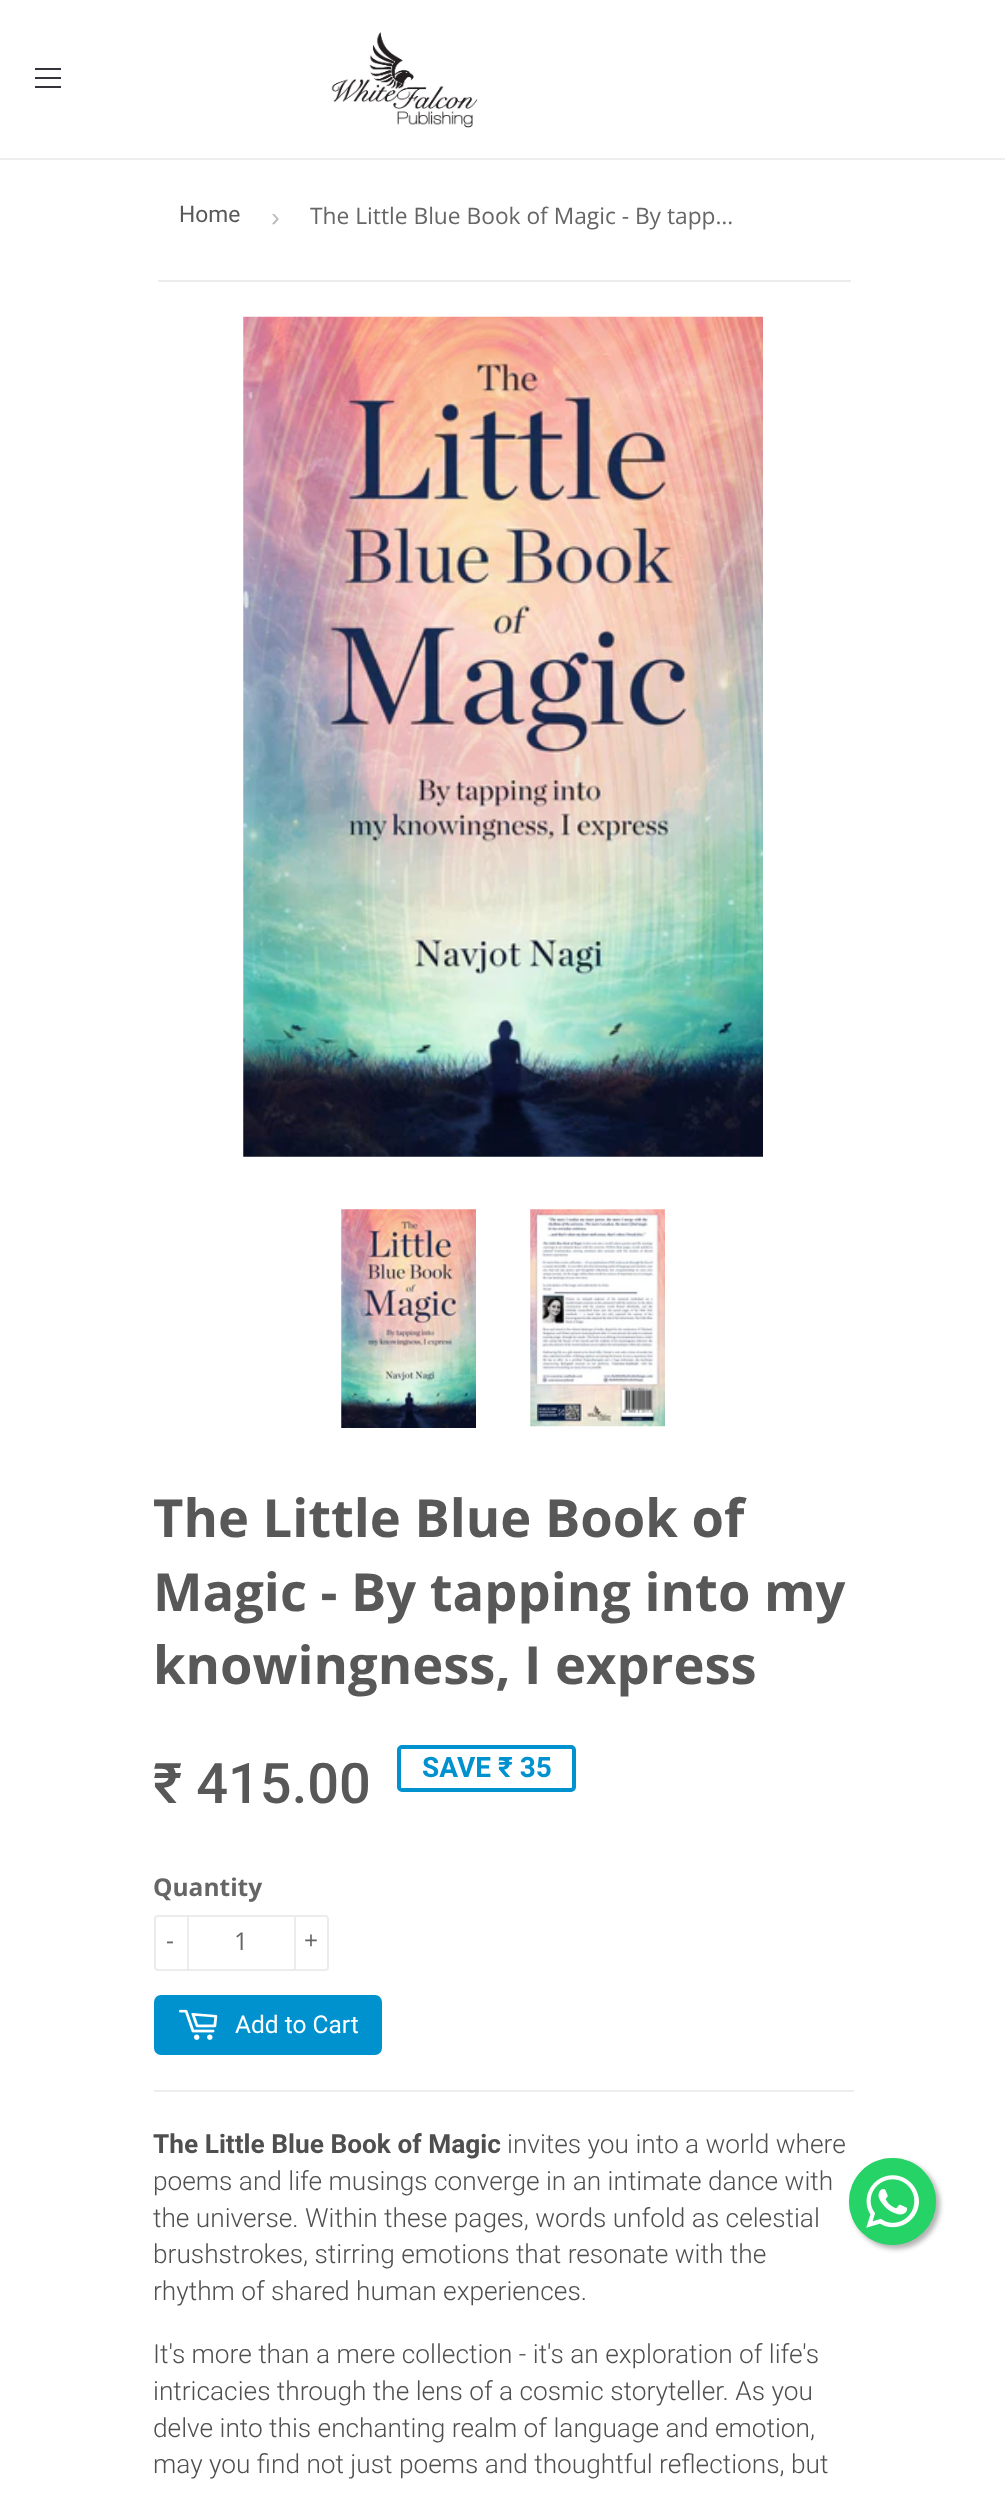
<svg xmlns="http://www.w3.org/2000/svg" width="1005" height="2494">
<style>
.a{font:22.75px Roboto;fill:#585858}
.b{font:26.25px Liberation Sans;fill:#bbb}
.c{font:22.75px Open Sans;fill:#666}
.d{font:bold 52.5px Open Sans;fill:#585858}
.e{font:500 56px Roboto;fill:#585858}
.f{font:bold 28px Roboto;fill:#0091cf}
.g{font:bold 24.5px Open Sans;fill:#666}
.h{font:24.5px Open Sans;fill:#666}
.i{font:24.5px Roboto;fill:#fff}
.j{font:bold 26.25px Roboto;fill:#504f4f}
.k{font:300 26.25px Roboto;fill:#504f4f}
</style>
<rect width="100%" height="100%" fill="#fff"/>
<path fill="#34343c" d="M35 86h26v2H35z"/>
<path fill="#34343c" d="M35 68h26v2H35z"/>
<path fill="#34343c" d="M35 77h26v2H35z"/>
<image href="1.png" x="331" y="32" width="147" height="96"/>
<path fill="#eee" d="M0 158h1005v2H0z"/>
<path fill="#ececec" d="M158 280h693v2H158z"/>
<image href="2.png" x="243" y="316" width="520" height="841"/>
<image href="3.png" x="341" y="1209" width="135" height="219"/>
<image href="4.png" x="530" y="1209" width="135" height="218"/>
<rect fill="none" stroke="#0091cf" stroke-width="4" x="399" y="1747" width="175" height="43" rx="3"/>
<rect fill="none" stroke="#ececec" stroke-width="2" x="155" y="1916" width="173" height="54" rx="3"/>
<path fill="#ececec" d="M187 1915h2v56H187z"/>
<path fill="#ececec" d="M294 1915h2v56H294z"/>
<rect fill="#0091cf" x="154" y="1995" width="228" height="60" rx="7"/>
<image href="5.png" x="178" y="2009" width="40" height="31"/>
<path fill="#eee" d="M154 2090h700v2H154z"/>
<rect fill="#0000004d" filter="blur(2.5px)" x="852" y="2161" width="88" height="88" rx="44"/>
<circle fill="#25d366" cx="892.5" cy="2201.5" r="43.5"/>
<circle fill="#25d366b3" cx="892.5" cy="2201.5" r="43.5"/>
<image href="6.png" x="866" y="2175" width="53" height="53"/>
<text class="a" x="179" y="222">Home</text>
<text class="b" x="271" y="226">›</text>
<text class="c" x="310" y="224">The Little Blue Book of Magic - By tapp…</text>
<text class="d" x="153" y="1537">The Little Blue Book of</text>
<text class="d" x="153" y="1611">Magic - By tapping into my</text>
<text class="d" x="153" y="1684">knowingness, I express</text>
<text class="e" x="153" y="1803">₹ 415.00</text>
<text class="f" x="422" y="1777">SAVE ₹ 35</text>
<text class="g" x="153" y="1896">Quantity</text>
<text class="h" x="166" y="1949">-</text>
<text class="h" x="234" y="1950">1</text>
<text class="h" x="304" y="1949">+</text>
<text class="i" x="235" y="2033">Add to Cart</text>
<text class="j" x="153" y="2153">The Little Blue Book of Magic</text>
<text class="k" x="507" y="2153">invites you into a world where</text>
<text class="k" x="153" y="2190">poems and life musings converge in an intimate dance with</text>
<text class="k" x="153" y="2227">the universe. Within these pages, words unfold as celestial</text>
<text class="k" x="153" y="2263">brushstrokes, stirring emotions that resonate with the</text>
<text class="k" x="153" y="2300">rhythm of shared human experiences.</text>
<text class="k" x="153" y="2363">It's more than a mere collection - it's an exploration of life's</text>
<text class="k" x="153" y="2400">intricacies through the lens of a cosmic storyteller. As you</text>
<text class="k" x="153" y="2437">delve into this enchanting realm of language and emotion,</text>
<text class="k" x="153" y="2473">may you find not just poems and thoughtful reflections, but</text>
</svg>
